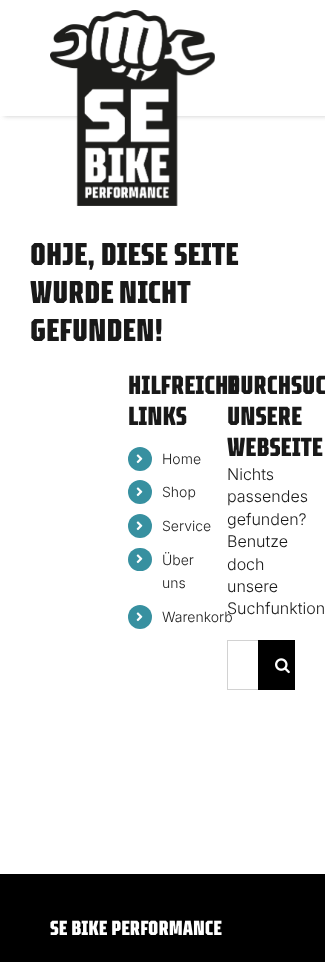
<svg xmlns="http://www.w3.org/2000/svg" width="325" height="962">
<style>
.a{font:800 31.5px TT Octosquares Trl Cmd;fill:#191919}
.b{font:800 26px TT Octosquares Trl Cmd;fill:#191919}
.c{font:300 14px Inter;fill:#191919}
.d{font:300 16px Inter;fill:#191919}
.e{font:800 20.25px TT Octosquares Trl Cmd;fill:#fff}
</style>
<defs>
<clipPath id="clip1"><path d="M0 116h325v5H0z"/></clipPath>
</defs>
<rect width="100%" height="100%" fill="#fff"/>
<g clip-path="url(#clip1)">
<path fill="#c9c9c9" filter="blur(2.5px)" d="M4 0h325v116H4z"/>
</g>
<image href="1.png" x="50" y="10" width="165" height="196"/>
<circle fill="#3790a0" cx="140" cy="459" r="12"/>
<image href="2.png" x="136" y="454" width="7" height="10"/>
<circle fill="#3790a0" cx="140" cy="492" r="12"/>
<image href="2.png" x="136" y="487" width="7" height="10"/>
<circle fill="#3790a0" cx="140" cy="526" r="12"/>
<image href="2.png" x="136" y="521" width="7" height="10"/>
<rect fill="#3790a0" x="128" y="548" width="24" height="23" rx="11.5"/>
<image href="2.png" x="136" y="554" width="7" height="10"/>
<circle fill="#3790a0" cx="140" cy="617" r="12"/>
<image href="2.png" x="136" y="612" width="7" height="10"/>
<path fill="#d2d2d2" d="M227 640h31v1H227z"/>
<path fill="#d2d2d2" d="M227 689h31v1H227z"/>
<path fill="#d2d2d2" d="M227 640h1v50H227z"/>
<path fill="#000" d="M258 640h37v50H258z"/>
<image href="3.png" x="275" y="658" width="15" height="16"/>
<path fill="#000" d="M0 874h325v88H0z"/>
<text class="a" x="30" y="265">OHJE, DIESE SEITE</text>
<text class="a" x="30" y="303" word-spacing="-1">WURDE NICHT</text>
<text class="a" x="30" y="341">GEFUNDEN!</text>
<text class="b" x="128" y="394">HILFREICHE</text>
<text class="b" x="128" y="425">LINKS</text>
<text class="c" x="162" y="464">Home</text>
<text class="c" x="162" y="497">Shop</text>
<text class="c" x="162" y="531">Service</text>
<text class="c" x="162" y="565">Über</text>
<text class="c" x="162" y="588">uns</text>
<text class="c" x="162" y="622">Warenkorb</text>
<text class="b" x="227" y="394">DURCHSUC</text>
<text class="b" x="227" y="425">UNSERE</text>
<text class="b" x="227" y="456">WEBSEITE</text>
<text class="d" x="227" y="480">Nichts</text>
<text class="d" x="227" y="502">passendes</text>
<text class="d" x="227" y="525">gefunden?</text>
<text class="d" x="227" y="547">Benutze</text>
<text class="d" x="227" y="570">doch</text>
<text class="d" x="227" y="592">unsere</text>
<text class="d" x="227" y="614">Suchfunktion</text>
<text class="e" x="50" y="935">SE BIKE PERFORMANCE</text>
</svg>
